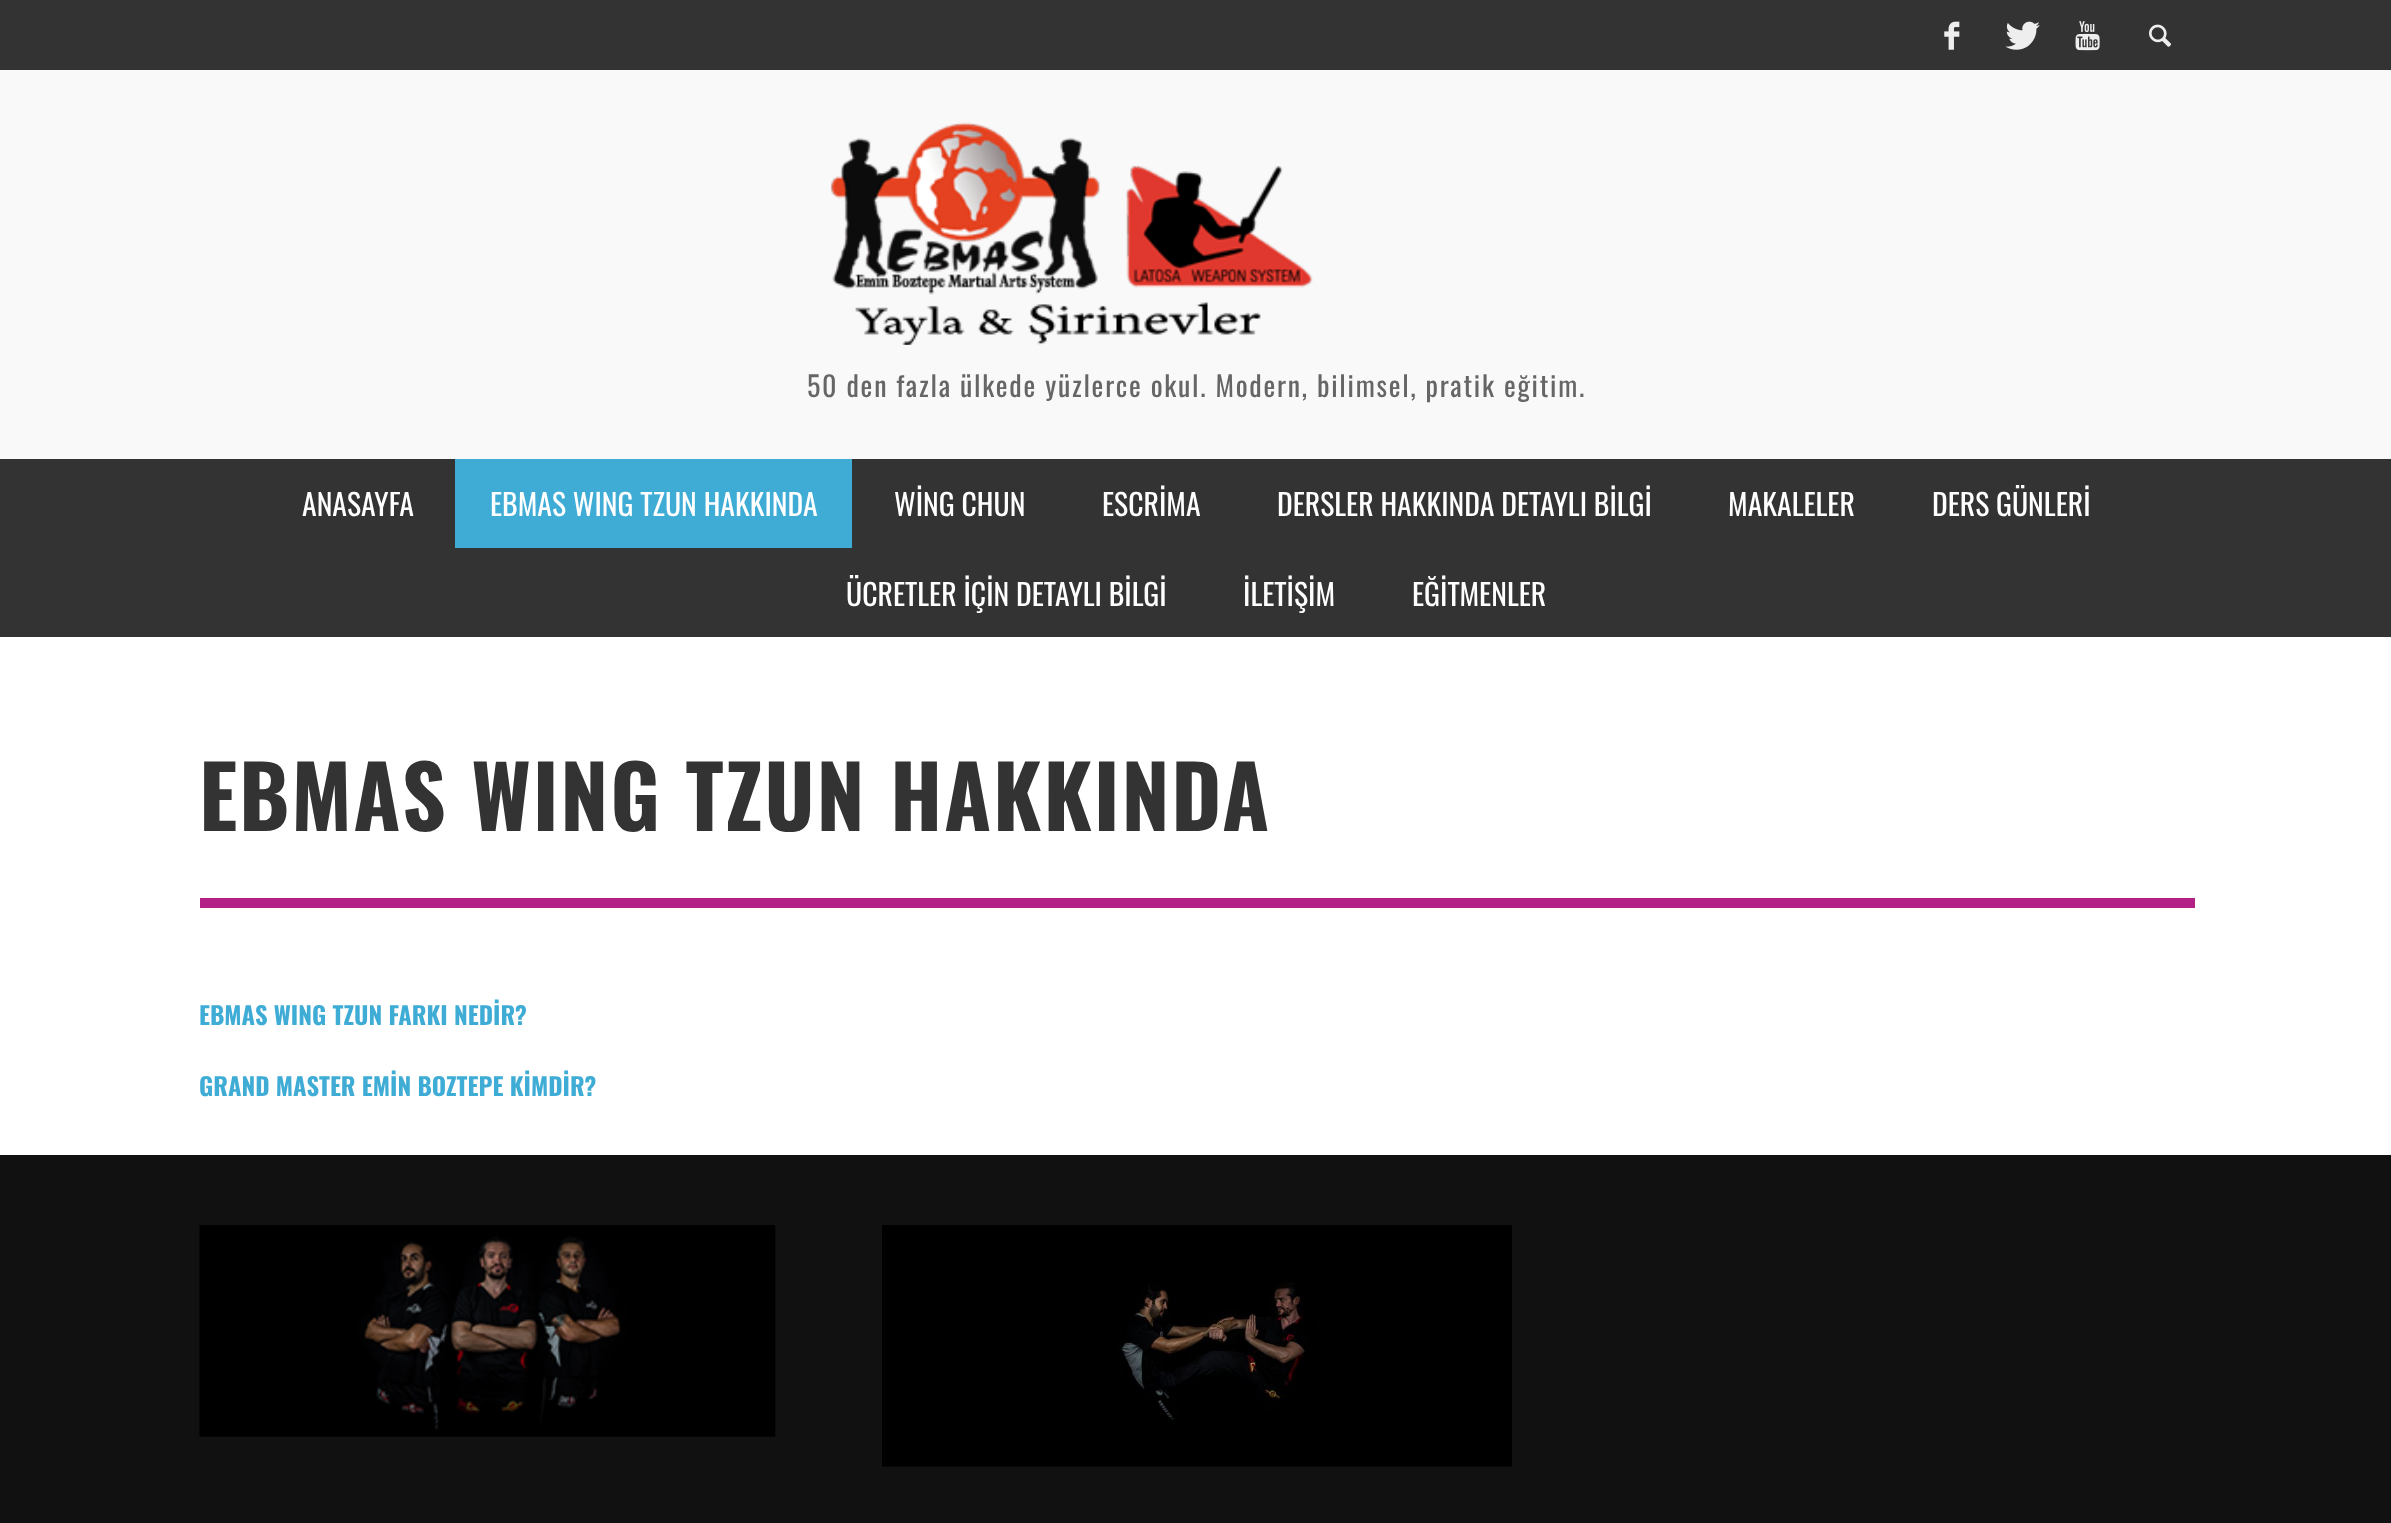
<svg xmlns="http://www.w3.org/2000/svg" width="2391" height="1523">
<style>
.a{font:28px Oswald;letter-spacing:1.75px;fill:#666}
.b{font:29.75px Oswald;fill:#fff}
.c{font:bold 85.75px Oswald;letter-spacing:1.75px;fill:#333}
.d{font:bold 24.5px Oswald;fill:#3facd6}
</style>
<rect width="100%" height="100%" fill="#fff"/>
<path fill="#333" d="M0 0h2391v70H0z"/>
<image href="1.png" x="1944" y="21" width="16" height="29"/>
<image href="2.png" x="2005" y="21" width="35" height="29"/>
<image href="3.png" x="2075" y="21" width="25" height="30"/>
<image href="4.png" x="2149" y="24" width="23" height="23"/>
<path fill="#f9f9f9" d="M0 70h2391v389H0z"/>
<image href="5.png" x="830" y="122" width="483" height="223"/>
<path fill="#333" d="M0 459h2391v178H0z"/>
<path fill="#3facd6" d="M455 459h397v89H455z"/>
<path fill="#b32186" d="M200 898h1995v10H200z"/>
<path fill="#111" d="M0 1155h2391v368H0z"/>
<image href="6.png" x="199" y="1225" width="577" height="212"/>
<image href="7.png" x="882" y="1225" width="630" height="242"/>
<text class="a" x="807" y="397">50 den fazla ülkede yüzlerce okul. Modern, bilimsel, pratik eğitim.</text>
<text class="b" x="302" y="516">ANASAYFA</text>
<text class="b" x="490" y="516">EBMAS WING TZUN HAKKINDA</text>
<text class="b" x="894" y="516">WİNG CHUN</text>
<text class="b" x="1102" y="516">ESCRİMA</text>
<text class="b" x="1277" y="516">DERSLER HAKKINDA DETAYLI BİLGİ</text>
<text class="b" x="1728" y="516">MAKALELER</text>
<text class="b" x="1932" y="516">DERS GÜNLERİ</text>
<text class="b" x="846" y="606">ÜCRETLER İÇİN DETAYLI BİLGİ</text>
<text class="b" x="1243" y="606">İLETİŞİM</text>
<text class="b" x="1412" y="606">EĞİTMENLER</text>
<text class="c" x="199" y="831">EBMAS WING TZUN HAKKINDA</text>
<text class="d" x="199" y="1025">EBMAS WING TZUN FARKI NEDİR?</text>
<text class="d" x="199" y="1096">GRAND MASTER EMİN BOZTEPE KİMDİR?</text>
</svg>
